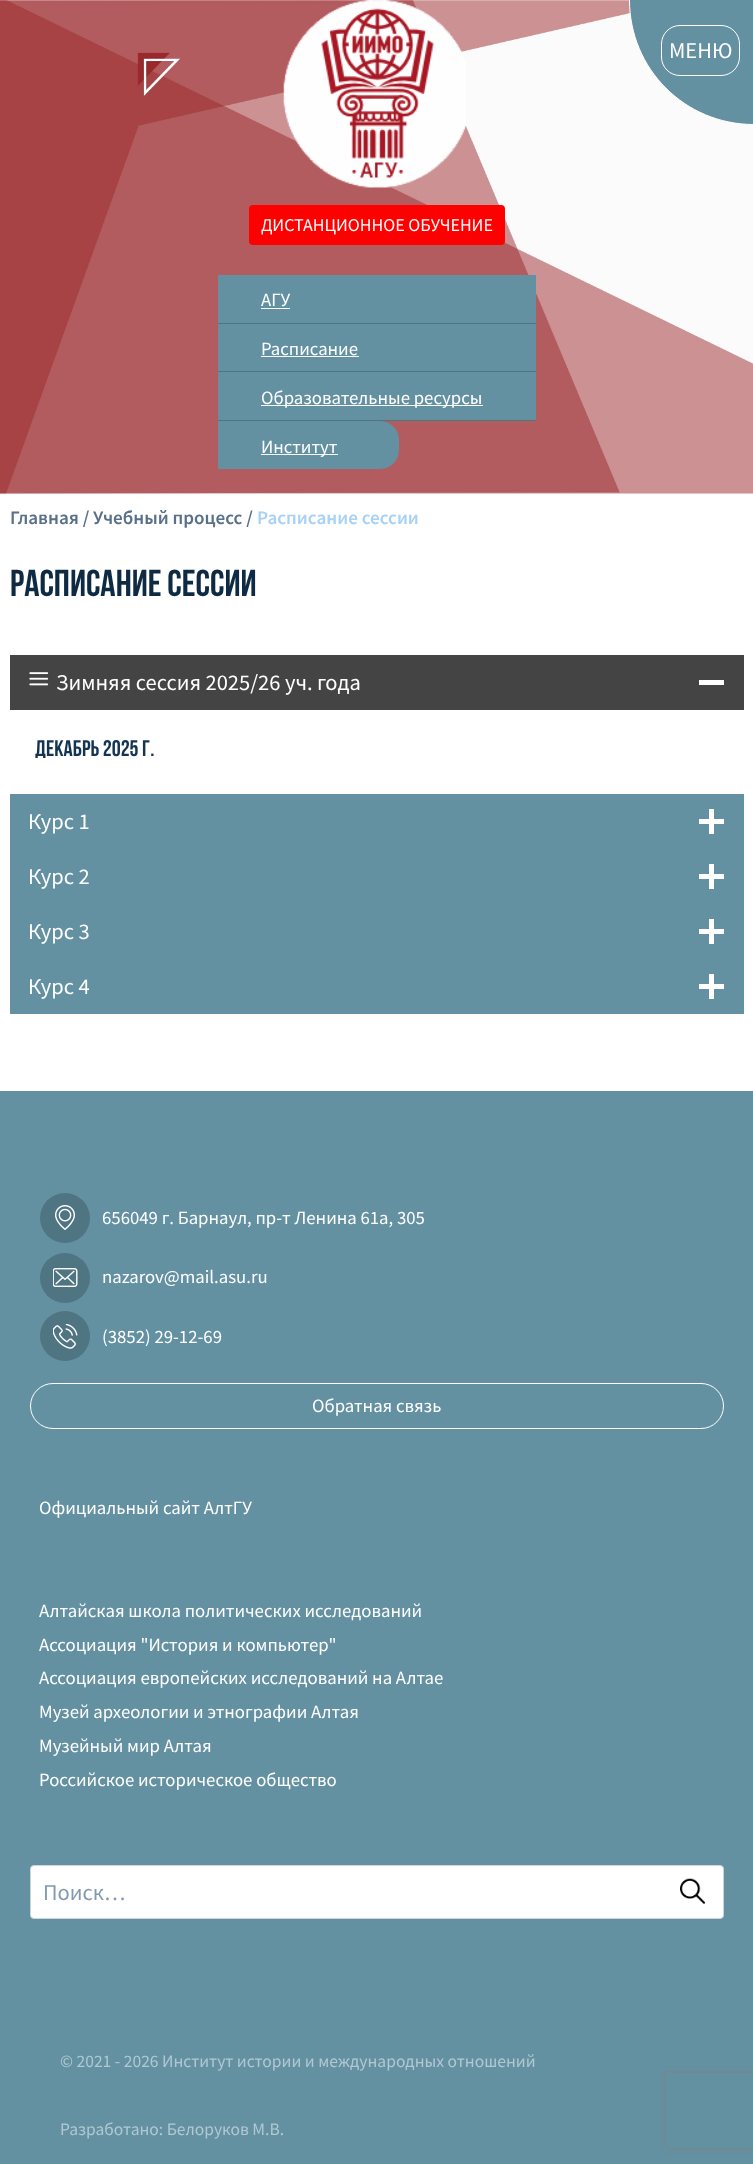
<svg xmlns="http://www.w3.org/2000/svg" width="753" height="2164">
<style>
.a{font:22.5px Source Sans Pro;fill:#fff}
.b{font:18px Source Sans Pro;fill:#fff}
.c{font:18.75px Source Sans Pro;fill:#fff}
.d{font:600 19.1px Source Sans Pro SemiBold;fill:#587089}
.e{font:600 19.1px Source Sans Pro SemiBold;fill:#a7d1f5}
.f{font:bold 37.5px Bebas Neue;fill:#0f2a43}
.g{font:bold 22.5px Bebas Neue;fill:#133453}
.h{font:22.5px Source Sans Pro;fill:#829ab1}
.i{font:17.5px Source Sans Pro;fill:#b1c8d1}
</style>
<defs>
<clipPath id="clip1"><path d="M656 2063h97v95h-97zm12.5 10h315c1.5 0 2.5 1 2.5 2.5v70c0 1.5-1 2.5-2.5 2.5h-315c-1.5 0-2.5-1-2.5-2.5v-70c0-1.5 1-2.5 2.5-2.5z" clip-rule="evenodd"/></clipPath>
</defs>
<rect width="100%" height="100%" fill="#fff"/>
<image href="1.png" x="0" y="0" width="753" height="494"/>
<path fill="#6391a2" stroke="#fff" d="M629.5-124.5h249v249h-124.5c-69 0-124.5-55.5-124.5-124.5z"/>
<rect fill="none" stroke="#fff" x="661.5" y="25.5" width="78" height="50" rx="18.5"/>
<image href="2.png" x="283" y="0" width="183" height="188"/>
<rect fill="#f00" x="249" y="205" width="256" height="40" rx="4"/>
<path fill="#6391a2" d="M218 275h318v48H218z"/>
<path fill="#4f7482" d="M218 323h318v1H218z"/>
<path fill="#fff" d="M261 308h29v1H261z"/>
<path fill="#6391a2" d="M218 324h318v96H218z"/>
<path fill="#4f7482" d="M218 371h318v1H218z"/>
<path fill="#fff" d="M261 356h98v1H261z"/>
<path fill="#4f7482" d="M218 420h318v1H218z"/>
<path fill="#fff" d="M261 405h222v1H261z"/>
<path fill="#6391a2" d="M218 421h162c10.5 0 19 8.5 19 19v10c0 10.5-8.5 19-19 19h-162z"/>
<path fill="#fff" d="M261 454h77v1H261z"/>
<path fill="#444" d="M10 655h734v55H10z"/>
<image href="3.png" x="29" y="672" width="20" height="14"/>
<path fill="#fff" d="M699 680h25v5H699z"/>
<path fill="#6391a2" d="M10 794h734v220H10z"/>
<path fill="#fff" d="M709 809h5v25H709z"/>
<path fill="#fff" d="M699 819h25v5H699z"/>
<path fill="#fff" d="M709 864h5v25H709z"/>
<path fill="#fff" d="M699 874h25v5H699z"/>
<path fill="#fff" d="M709 919h5v25H709z"/>
<path fill="#fff" d="M699 929h25v5H699z"/>
<path fill="#fff" d="M709 974h5v25H709z"/>
<path fill="#fff" d="M699 984h25v5H699z"/>
<path fill="#6391a2" d="M0 1091h753v1073H0z"/>
<circle fill="#4f7482" cx="65" cy="1218" r="25"/>
<image href="4.png" x="55" y="1205" width="20" height="25"/>
<circle fill="#4f7482" cx="65" cy="1278" r="25"/>
<image href="5.png" x="53" y="1268" width="25" height="19"/>
<circle fill="#4f7482" cx="65" cy="1336" r="25"/>
<image href="6.png" x="53" y="1324" width="25" height="25"/>
<rect fill="none" stroke="#fff" x="30.5" y="1383.5" width="693" height="45" rx="22.5"/>
<rect fill="#fff" stroke="#cbd5e0" x="30.5" y="1865.5" width="693" height="53" rx="3.5"/>
<image href="7.png" x="680" y="1878" width="25" height="26"/>
<g clip-path="url(#clip1)">
<rect fill="#808080" filter="blur(3px)" x="666" y="2073" width="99" height="75" rx="2.5"/>
</g>
<text class="a" x="669" y="58">МЕНЮ</text>
<text class="b" x="261" y="231">ДИСТАНЦИОННОЕ ОБУЧЕНИЕ</text>
<text class="c" x="261" y="306">АГУ</text>
<text class="c" x="261" y="355">Расписание</text>
<text class="c" x="261" y="404">Образовательные ресурсы</text>
<text class="c" x="261" y="453">Институт</text>
<text class="d" x="10" y="524">Главная / Учебный процесс /</text>
<text class="e" x="257" y="524">Расписание сессии</text>
<text class="f" x="10" y="596">Расписание сессии</text>
<text class="a" x="56" y="690">Зимняя сессия 2025/26 уч. года</text>
<text class="g" x="35" y="756">Декабрь 2025 г.</text>
<text class="a" x="28" y="829">Курс 1</text>
<text class="a" x="28" y="884">Курс 2</text>
<text class="a" x="28" y="939">Курс 3</text>
<text class="a" x="28" y="994">Курс 4</text>
<text class="c" x="102" y="1224">656049 г. Барнаул, пр-т Ленина 61а, 305</text>
<text class="c" x="102" y="1283">nazarov@mail.asu.ru</text>
<text class="c" x="102" y="1343">(3852) 29-12-69</text>
<text class="c" x="312" y="1412">Обратная связь</text>
<text class="c" x="39" y="1514">Официальный сайт АлтГУ</text>
<text class="c" x="39" y="1617">Алтайская школа политических исследований</text>
<text class="c" x="39" y="1651">Ассоциация "История и компьютер"</text>
<text class="c" x="39" y="1684">Ассоциация европейских исследований на Алтае</text>
<text class="c" x="39" y="1718">Музей археологии и этнографии Алтая</text>
<text class="c" x="39" y="1752">Музейный мир Алтая</text>
<text class="c" x="39" y="1786">Российское историческое общество</text>
<text class="h" x="43" y="1900">Поиск…</text>
<text class="i" x="60" y="2067">© 2021 - 2026 Институт истории и международных отношений</text>
<text class="i" x="60" y="2135">Разработано: Белоруков М.В.</text>
</svg>
